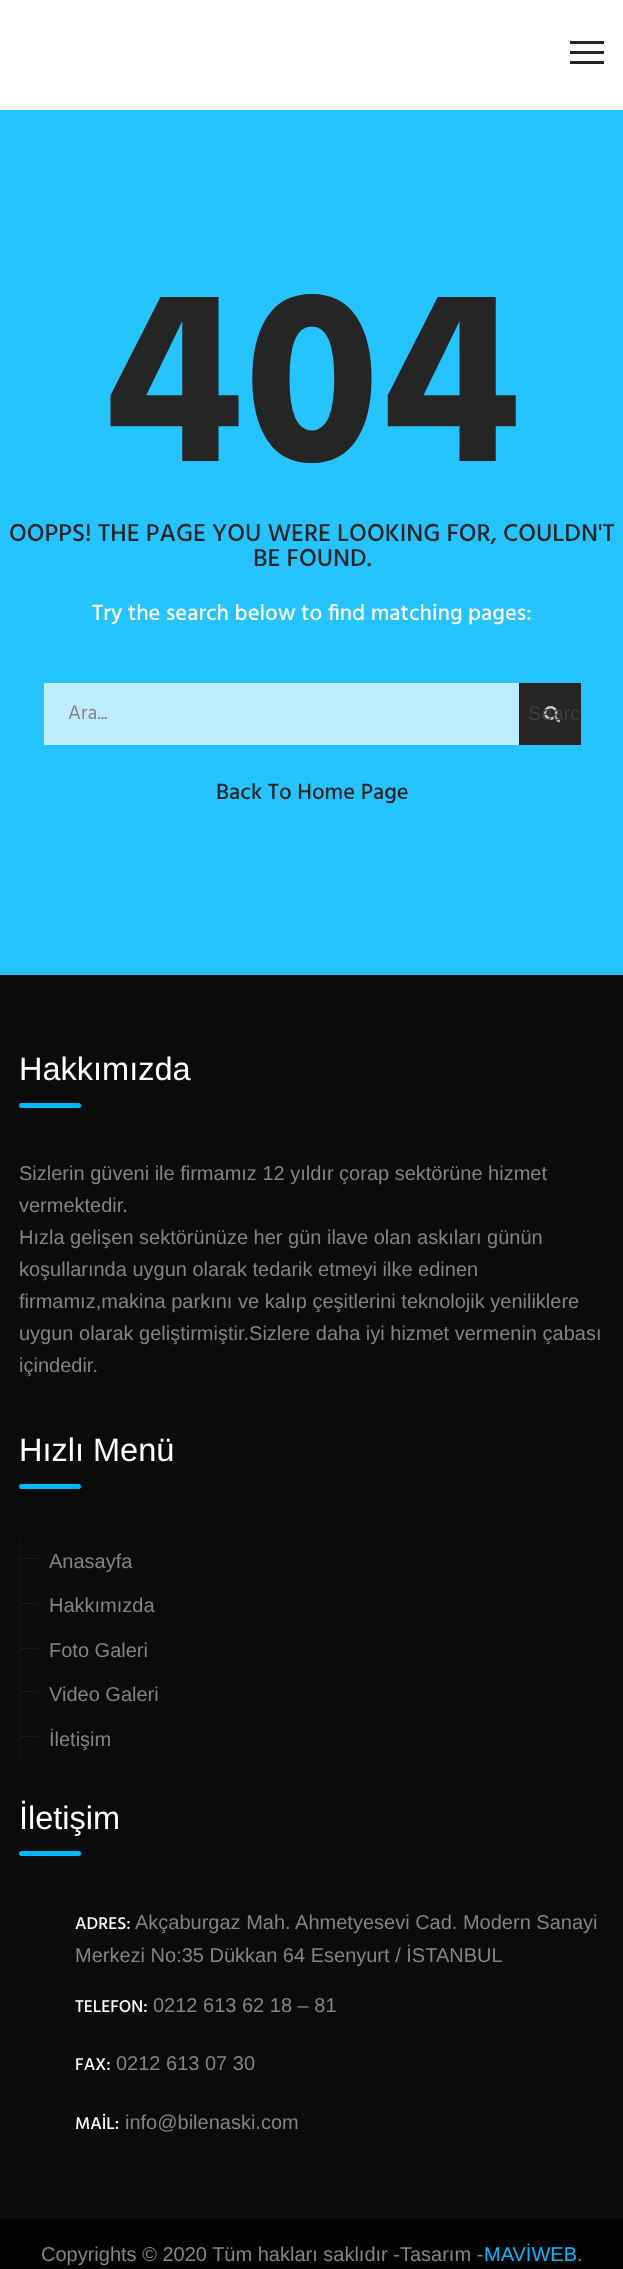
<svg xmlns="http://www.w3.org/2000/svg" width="623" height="2269">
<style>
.a{font:bold 250px Hind;fill:#252525}
.b{font:500 25px Hind;fill:#252525}
.c{font:500 22.5px Hind;fill:#fff}
.d{font:20px Hind;fill:#848484}
.e{font:20px Liberation Sans;fill:#404040}
.f{font:500 22.5px Hind;fill:#252525}
.g{font:32.5px Liberation Sans;fill:#fff}
.h{font:20px Liberation Sans;fill:#848484}
.i{font:500 17.5px Hind;fill:#fff}
.j{font:20px Liberation Sans;fill:#00baff}
</style>
<defs>
<clipPath id="clip1"><path d="M521 685h58v58H521z"/></clipPath>
</defs>
<rect width="100%" height="100%" fill="#020202"/>
<path fill="#fff" d="M0 0h623v110H0z"/>
<path fill="#252525" d="M570 51h34v3H570z"/>
<path fill="#252525" d="M570 41h34v3H570z"/>
<path fill="#252525" d="M570 61h34v3H570z"/>
<path fill="#26c4ff" d="M0 110h623v865H0z"/>
<path fill="#beedff" d="M44 683h475v62H44z"/>
<path fill="#252525" d="M519 683h62v62H519z"/>
<image href="1.png" x="543" y="706" width="17" height="17"/>
<path fill="#0b0b0b" d="M0 975h623v1244H0z"/>
<rect fill="#00baff" x="19" y="1103" width="62" height="5" rx="2.5"/>
<rect fill="#00baff" x="19" y="1484" width="62" height="5" rx="2.5"/>
<path fill="#181818" d="M19 1539h1v222H19z"/>
<path fill="#181818" d="M20 1558h19v1H20z"/>
<path fill="#181818" d="M20 1603h19v1H20z"/>
<path fill="#181818" d="M20 1648h19v1H20z"/>
<path fill="#181818" d="M20 1691h19v1H20z"/>
<path fill="#181818" d="M20 1736h19v1H20z"/>
<rect fill="#00baff" x="19" y="1851" width="62" height="5" rx="2.5"/>
<text class="a" x="103" y="461">404</text>
<text class="b" x="9" y="541">OOPPS! THE PAGE YOU WERE LOOKING FOR, COULDN'T</text>
<text class="b" x="253" y="566">BE FOUND.</text>
<text class="c" x="92" y="620">Try the search below to find matching pages:</text>
<text class="d" x="68" y="719">Ara...</text>
<g clip-path="url(#clip1)">
<text class="e" x="528" y="720">Searc</text>
</g>
<text class="f" x="216" y="799">Back To Home Page</text>
<text class="g" x="19" y="1080">Hakkımızda</text>
<text class="h" x="19" y="1180">Sizlerin güveni ile firmamız 12 yıldır çorap sektörüne hizmet</text>
<text class="h" x="19" y="1212">vermektedir.</text>
<text class="h" x="19" y="1244">Hızla gelişen sektörünüze her gün ilave olan askıları günün</text>
<text class="h" x="19" y="1276">koşullarında uygun olarak tedarik etmeyi ilke edinen</text>
<text class="h" x="19" y="1308">firmamız,makina parkını ve kalıp çeşitlerini teknolojik yeniliklere</text>
<text class="h" x="19" y="1340">uygun olarak geliştirmiştir.Sizlere daha iyi hizmet vermenin çabası</text>
<text class="h" x="19" y="1372">içindedir.</text>
<text class="g" x="19" y="1461">Hızlı Menü</text>
<text class="h" x="49" y="1568">Anasayfa</text>
<text class="h" x="49" y="1612">Hakkımızda</text>
<text class="h" x="49" y="1657">Foto Galeri</text>
<text class="h" x="49" y="1701">Video Galeri</text>
<text class="h" x="49" y="1746">İletişim</text>
<text class="g" x="19" y="1829">İletişim</text>
<text class="i" x="75" y="1929">ADRES:</text>
<text class="h" x="135" y="1929">Akçaburgaz Mah. Ahmetyesevi Cad. Modern Sanayi</text>
<text class="h" x="75" y="1962">Merkezi No:35 Dükkan 64 Esenyurt / İSTANBUL</text>
<text class="i" x="75" y="2012">TELEFON:</text>
<text class="h" x="153" y="2012">0212 613 62 18 – 81</text>
<text class="i" x="75" y="2070">FAX:</text>
<text class="h" x="116" y="2070">0212 613 07 30</text>
<text class="i" x="75" y="2129">MAİL:</text>
<text class="h" x="125" y="2129">info@bilenaski.com</text>
<text class="h" x="41" y="2261">Copyrights © 2020 Tüm hakları saklıdır -Tasarım -</text>
<text class="j" x="484" y="2261">MAVİWEB</text>
<text class="h" x="577" y="2261">.</text>
</svg>
